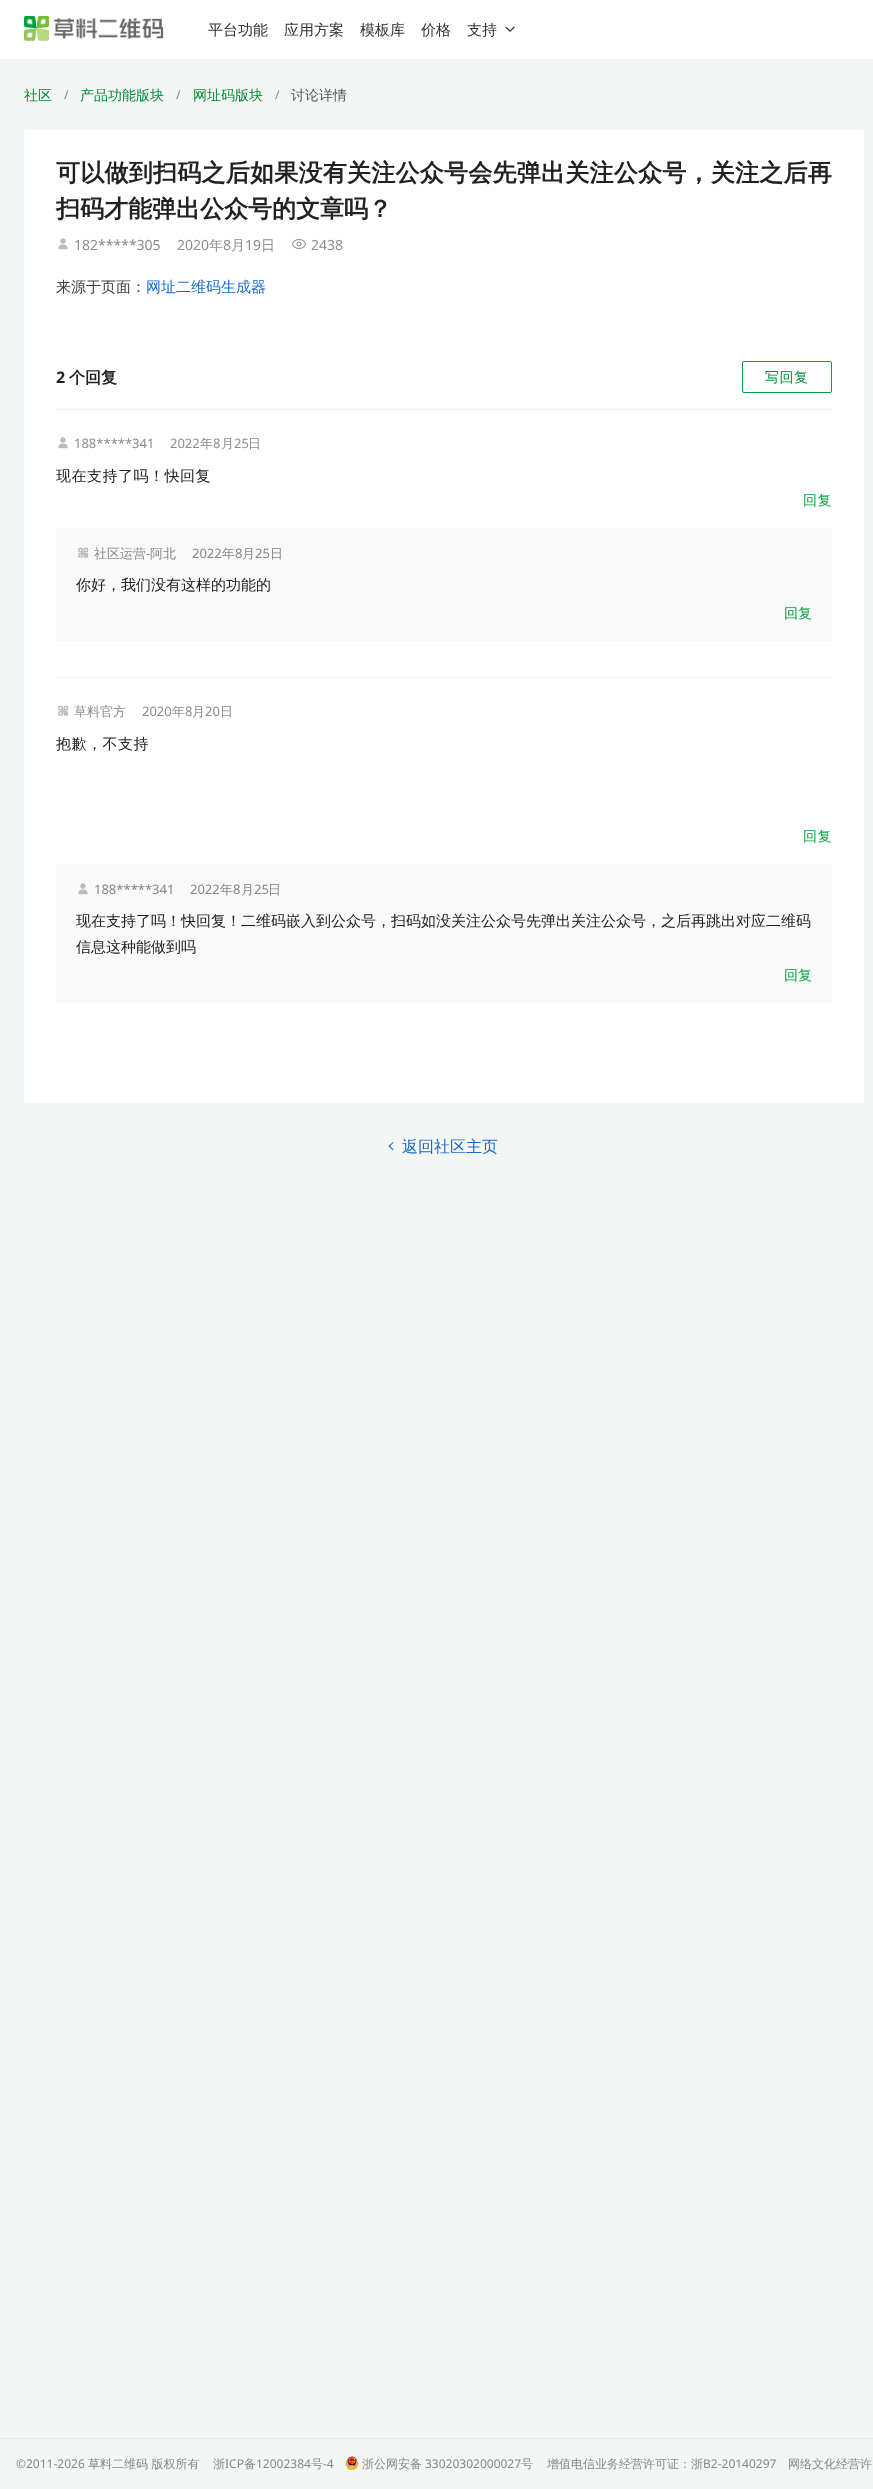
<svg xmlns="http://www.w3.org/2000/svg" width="873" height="2489">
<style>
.a{font:500 15px WenQuanYi Zen Hei;fill:#333}
.b{font:500 14px WenQuanYi Zen Hei;fill:#008c33}
.c{font:12px Noto Sans;fill:#868787}
.d{font:500 14px WenQuanYi Zen Hei;fill:#555656}
.e{font:bold 24px WenQuanYi Zen Hei;letter-spacing:0.25px;fill:#212121}
.f{font:bold 24px WenQuanYi Zen Hei;fill:#212121}
.g{font:14px Noto Sans;fill:#8c8c8c}
.h{font:500 14px WenQuanYi Zen Hei;fill:#8c8c8c}
.i{font:500 15px WenQuanYi Zen Hei;fill:#404040}
.j{font:500 15px WenQuanYi Zen Hei;fill:#166bc7}
.k{font:bold 16px Noto Sans;fill:#212121}
.l{font:bold 16px WenQuanYi Zen Hei;fill:#212121}
.m{font:500 14px WenQuanYi Zen Hei;letter-spacing:0.5px;fill:#008c33}
.n{font:13px Noto Sans;fill:#8c8c8c}
.o{font:500 13px WenQuanYi Zen Hei;fill:#8c8c8c}
.p{font:500 15px WenQuanYi Zen Hei;letter-spacing:0.5px;fill:#212121}
.q{font:500 14px WenQuanYi Zen Hei;letter-spacing:0.5px;fill:#00a13b}
.r{font:500 13px WenQuanYi Zen Hei;fill:#868787}
.s{font:13px Noto Sans;fill:#868787}
.t{font:500 15px WenQuanYi Zen Hei;fill:#212121}
.u{font:500 14px WenQuanYi Zen Hei;fill:#00a13b}
.v{font:500 16px WenQuanYi Zen Hei;fill:#166bc7}
.w{font:500 12px WenQuanYi Zen Hei;fill:#868787}
</style>
<rect width="100%" height="100%" fill="#f4f5f5"/>
<path fill="#fff" d="M0 0h873v59H0z"/>
<image href="1.png" x="24" y="16" width="140" height="25"/>
<image href="2.png" x="505" y="26" width="10" height="6"/>
<path fill="#fff" d="M26 130h836c1 0 2 1 2 2v197h-840v-197c0-1 1-2 2-2z"/>
<image href="3.png" x="58" y="238" width="10" height="12"/>
<image href="4.png" x="292" y="239" width="14" height="10"/>
<path fill="#fff" d="M24 329h840v772c0 1-1 2-2 2h-836c-1 0-2-1-2-2z"/>
<rect fill="none" stroke="#00a13b" x="742.5" y="361.5" width="89" height="31" rx="1.5"/>
<path fill="#edeff0" d="M56 409h776v1H56z"/>
<path fill="#edeff0" d="M56 677h776v1H56z"/>
<image href="3.png" x="58" y="437" width="10" height="12"/>
<rect fill="#f9f9f9" x="56" y="528" width="776" height="113" rx="2"/>
<image href="5.png" x="78" y="547" width="11" height="11"/>
<image href="6.png" x="58" y="705" width="11" height="11"/>
<rect fill="#f9f9f9" x="56" y="864" width="776" height="139" rx="2"/>
<image href="7.png" x="78" y="883" width="10" height="12"/>
<path fill="#166bc7" d="M389.5 1145.5l4 4l-.5 1l-4.5-4.5z"/>
<path fill="#166bc7" d="M393 1142l.5 .5l-4 4.5l-1-1z"/>
<path fill="#e4e6e7" d="M0 2438h873v1H0z"/>
<image href="8.png" x="345" y="2456" width="14" height="14"/>
<text class="a" x="208" y="35">平台功能</text>
<text class="a" x="284" y="35">应用方案</text>
<text class="a" x="360" y="35">模板库</text>
<text class="a" x="421" y="35">价格</text>
<text class="a" x="467" y="35">支持</text>
<text class="b" x="24" y="100">社区</text>
<text class="c" x="64" y="99">/</text>
<text class="b" x="80" y="100">产品功能版块</text>
<text class="c" x="176" y="99">/</text>
<text class="b" x="193" y="100">网址码版块</text>
<text class="c" x="275" y="99">/</text>
<text class="d" x="291" y="100">讨论详情</text>
<text class="e" x="56" y="181">可以做到扫码之后如果没有关注公众号会先弹出关注公众号，关注之后再</text>
<text class="f" x="56" y="217">扫码才能弹出公众号的文章吗？</text>
<text class="g" x="74" y="250">182*****305</text>
<text class="g" x="177" y="250">2020</text>
<text class="h" x="209" y="250">年</text>
<text class="g" x="223" y="250">8</text>
<text class="h" x="231" y="250">月</text>
<text class="g" x="245" y="250">19</text>
<text class="h" x="261" y="250">日</text>
<text class="g" x="311" y="250">2438</text>
<text class="i" x="56" y="292">来源于页面：</text>
<text class="j" x="146" y="292">网址二维码生成器</text>
<text class="k" x="56" y="383">2</text>
<text class="l" x="69" y="383">个回复</text>
<text class="m" x="765" y="382">写回复</text>
<text class="n" x="74" y="448">188*****341</text>
<text class="n" x="170" y="448">2022</text>
<text class="o" x="200" y="448">年</text>
<text class="n" x="213" y="448">8</text>
<text class="o" x="221" y="448">月</text>
<text class="n" x="234" y="448">25</text>
<text class="o" x="248" y="448">日</text>
<text class="p" x="56" y="481">现在支持了吗！快回复</text>
<text class="q" x="803" y="505">回复</text>
<text class="r" x="94" y="558">社区运营 阿北</text>
<text class="s" x="146" y="558">-</text>
<text class="s" x="192" y="558">2022</text>
<text class="r" x="222" y="558">年</text>
<text class="s" x="235" y="558">8</text>
<text class="r" x="242" y="558">月</text>
<text class="s" x="255" y="558">25</text>
<text class="r" x="270" y="558">日</text>
<text class="t" x="76" y="590">你好，我们没有这样的功能的</text>
<text class="u" x="784" y="618">回复</text>
<text class="o" x="74" y="716">草料官方</text>
<text class="n" x="142" y="716">2020</text>
<text class="o" x="172" y="716">年</text>
<text class="n" x="185" y="716">8</text>
<text class="o" x="192" y="716">月</text>
<text class="n" x="205" y="716">20</text>
<text class="o" x="220" y="716">日</text>
<text class="p" x="56" y="749">抱歉，不支持</text>
<text class="q" x="803" y="841">回复</text>
<text class="s" x="94" y="894">188*****341</text>
<text class="s" x="190" y="894">2022</text>
<text class="r" x="220" y="894">年</text>
<text class="s" x="233" y="894">8</text>
<text class="r" x="241" y="894">月</text>
<text class="s" x="254" y="894">25</text>
<text class="r" x="268" y="894">日</text>
<text class="t" x="76" y="926">现在支持了吗！快回复！二维码嵌入到公众号，扫码如没关注公众号先弹出关注公众号，之后再跳出对应二维码</text>
<text class="t" x="76" y="952">信息这种能做到吗</text>
<text class="u" x="784" y="980">回复</text>
<text class="v" x="402" y="1152">返回社区主页</text>
<text class="c" x="16" y="2468">©2011-2026</text>
<text class="w" x="88" y="2468">草料二维码 版权所有</text>
<text class="w" x="213" y="2468">浙</text>
<text class="c" x="225" y="2468">ICP</text>
<text class="w" x="244" y="2468">备</text>
<text class="c" x="256" y="2468">12002384</text>
<text class="w" x="311" y="2468">号</text>
<text class="c" x="323" y="2468">-4</text>
<text class="w" x="362" y="2468">浙公网安备</text>
<text class="c" x="425" y="2468">33020302000027</text>
<text class="w" x="521" y="2468">号</text>
<text class="w" x="547" y="2468">增值电信业务经营许可证：浙</text>
<text class="c" x="703" y="2468">B2-20140297</text>
<text class="w" x="788" y="2468">网络文化经营许</text>
</svg>
